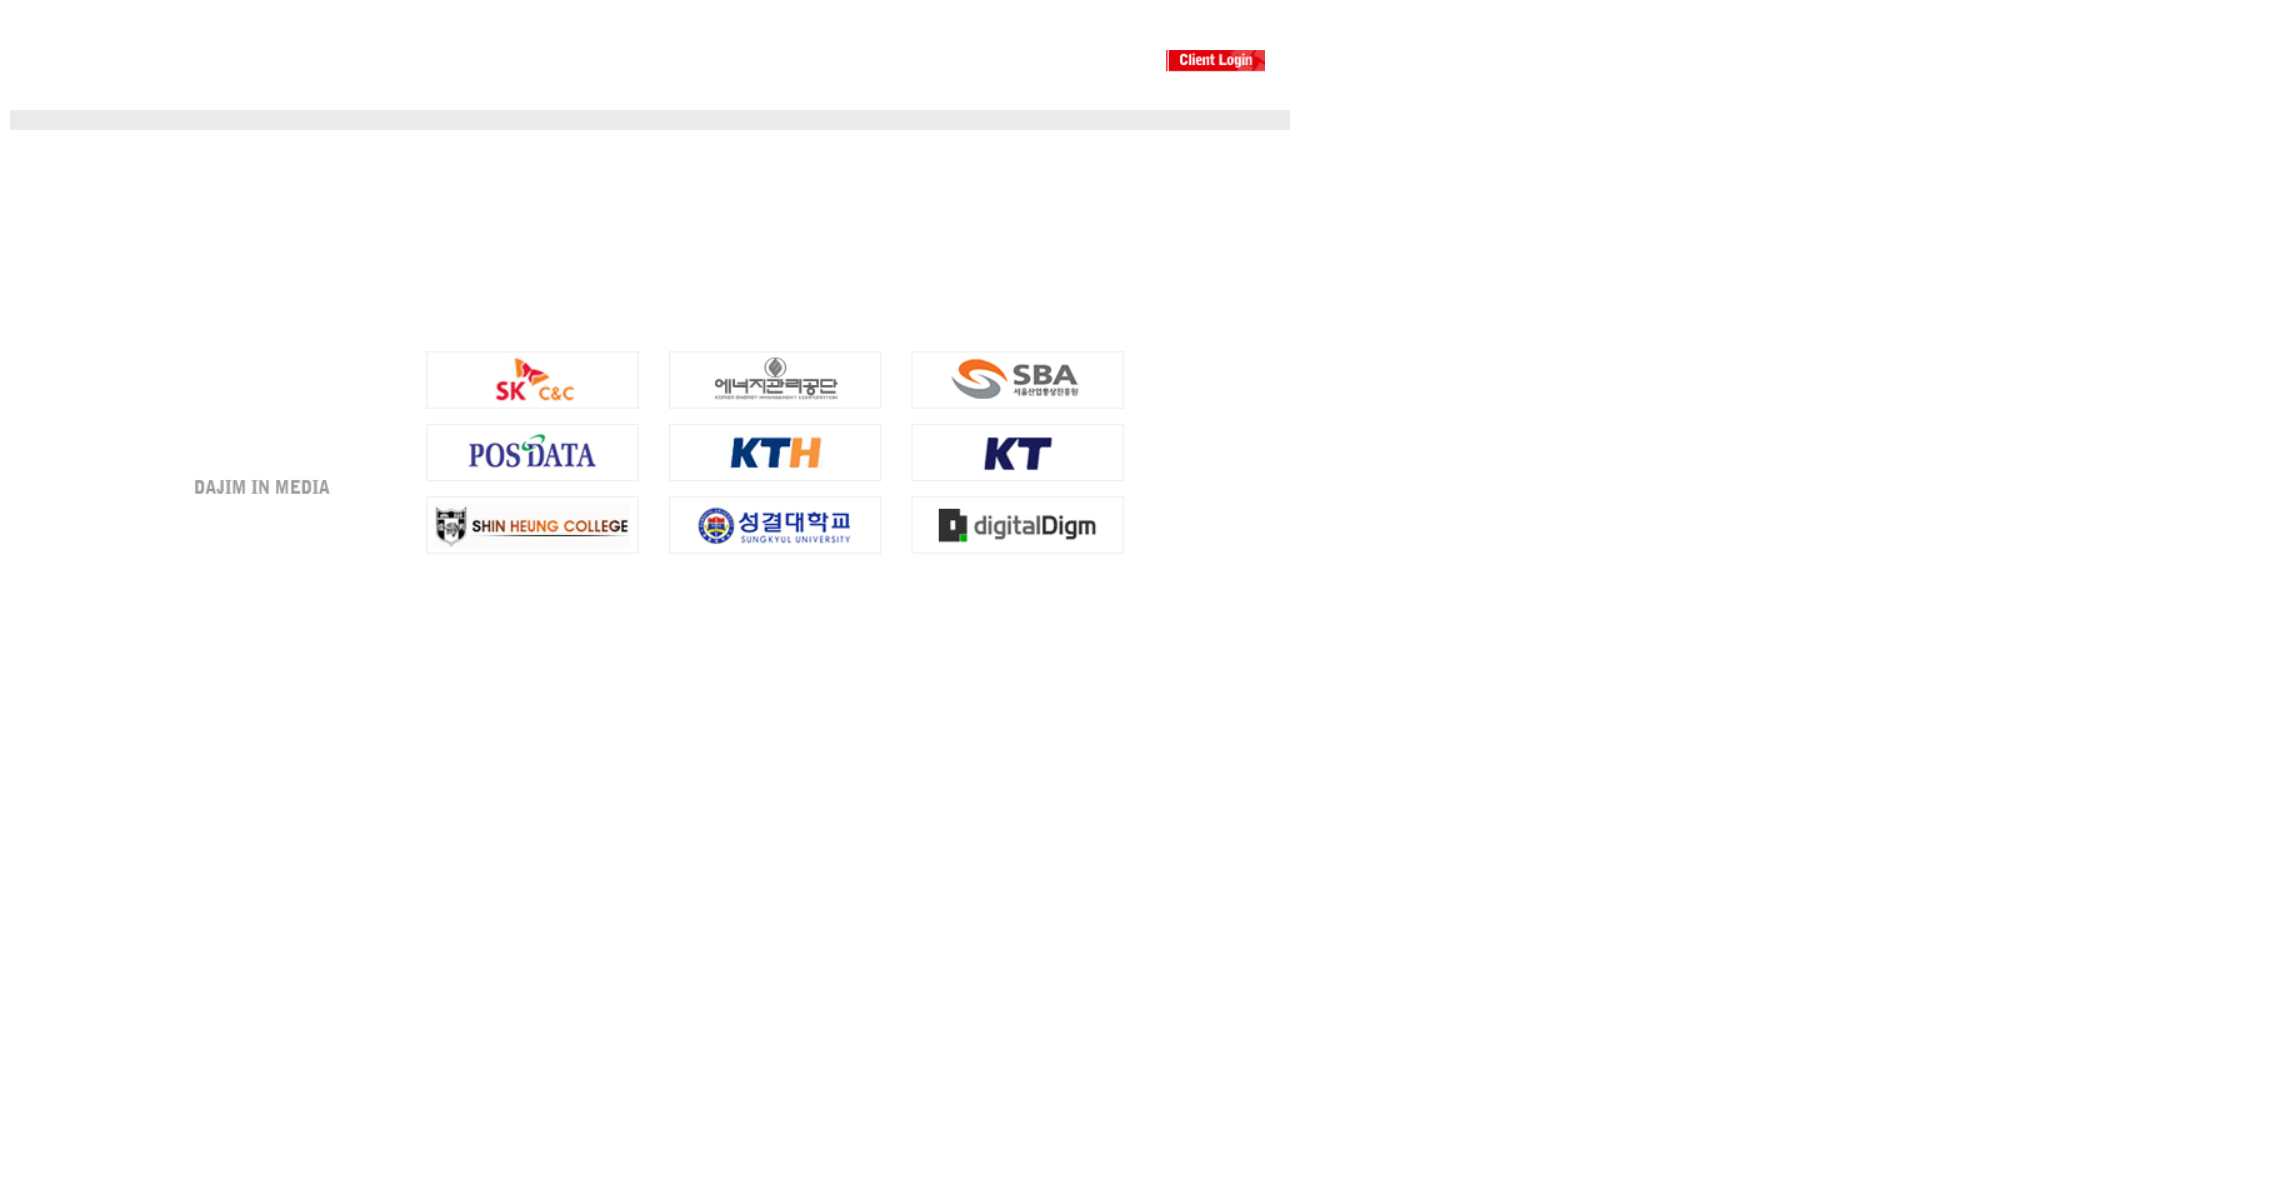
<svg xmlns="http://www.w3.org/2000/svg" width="2295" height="1202">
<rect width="100%" height="100%" fill="#fff"/>
<image href="1.png" x="1166" y="50" width="99" height="22"/>
<path fill="#eaeaea" d="M10 110h1280v20H10z"/>
<image href="2.png" x="194" y="479" width="136" height="15"/>
<image href="3.png" x="426" y="351" width="698" height="203"/>
</svg>
